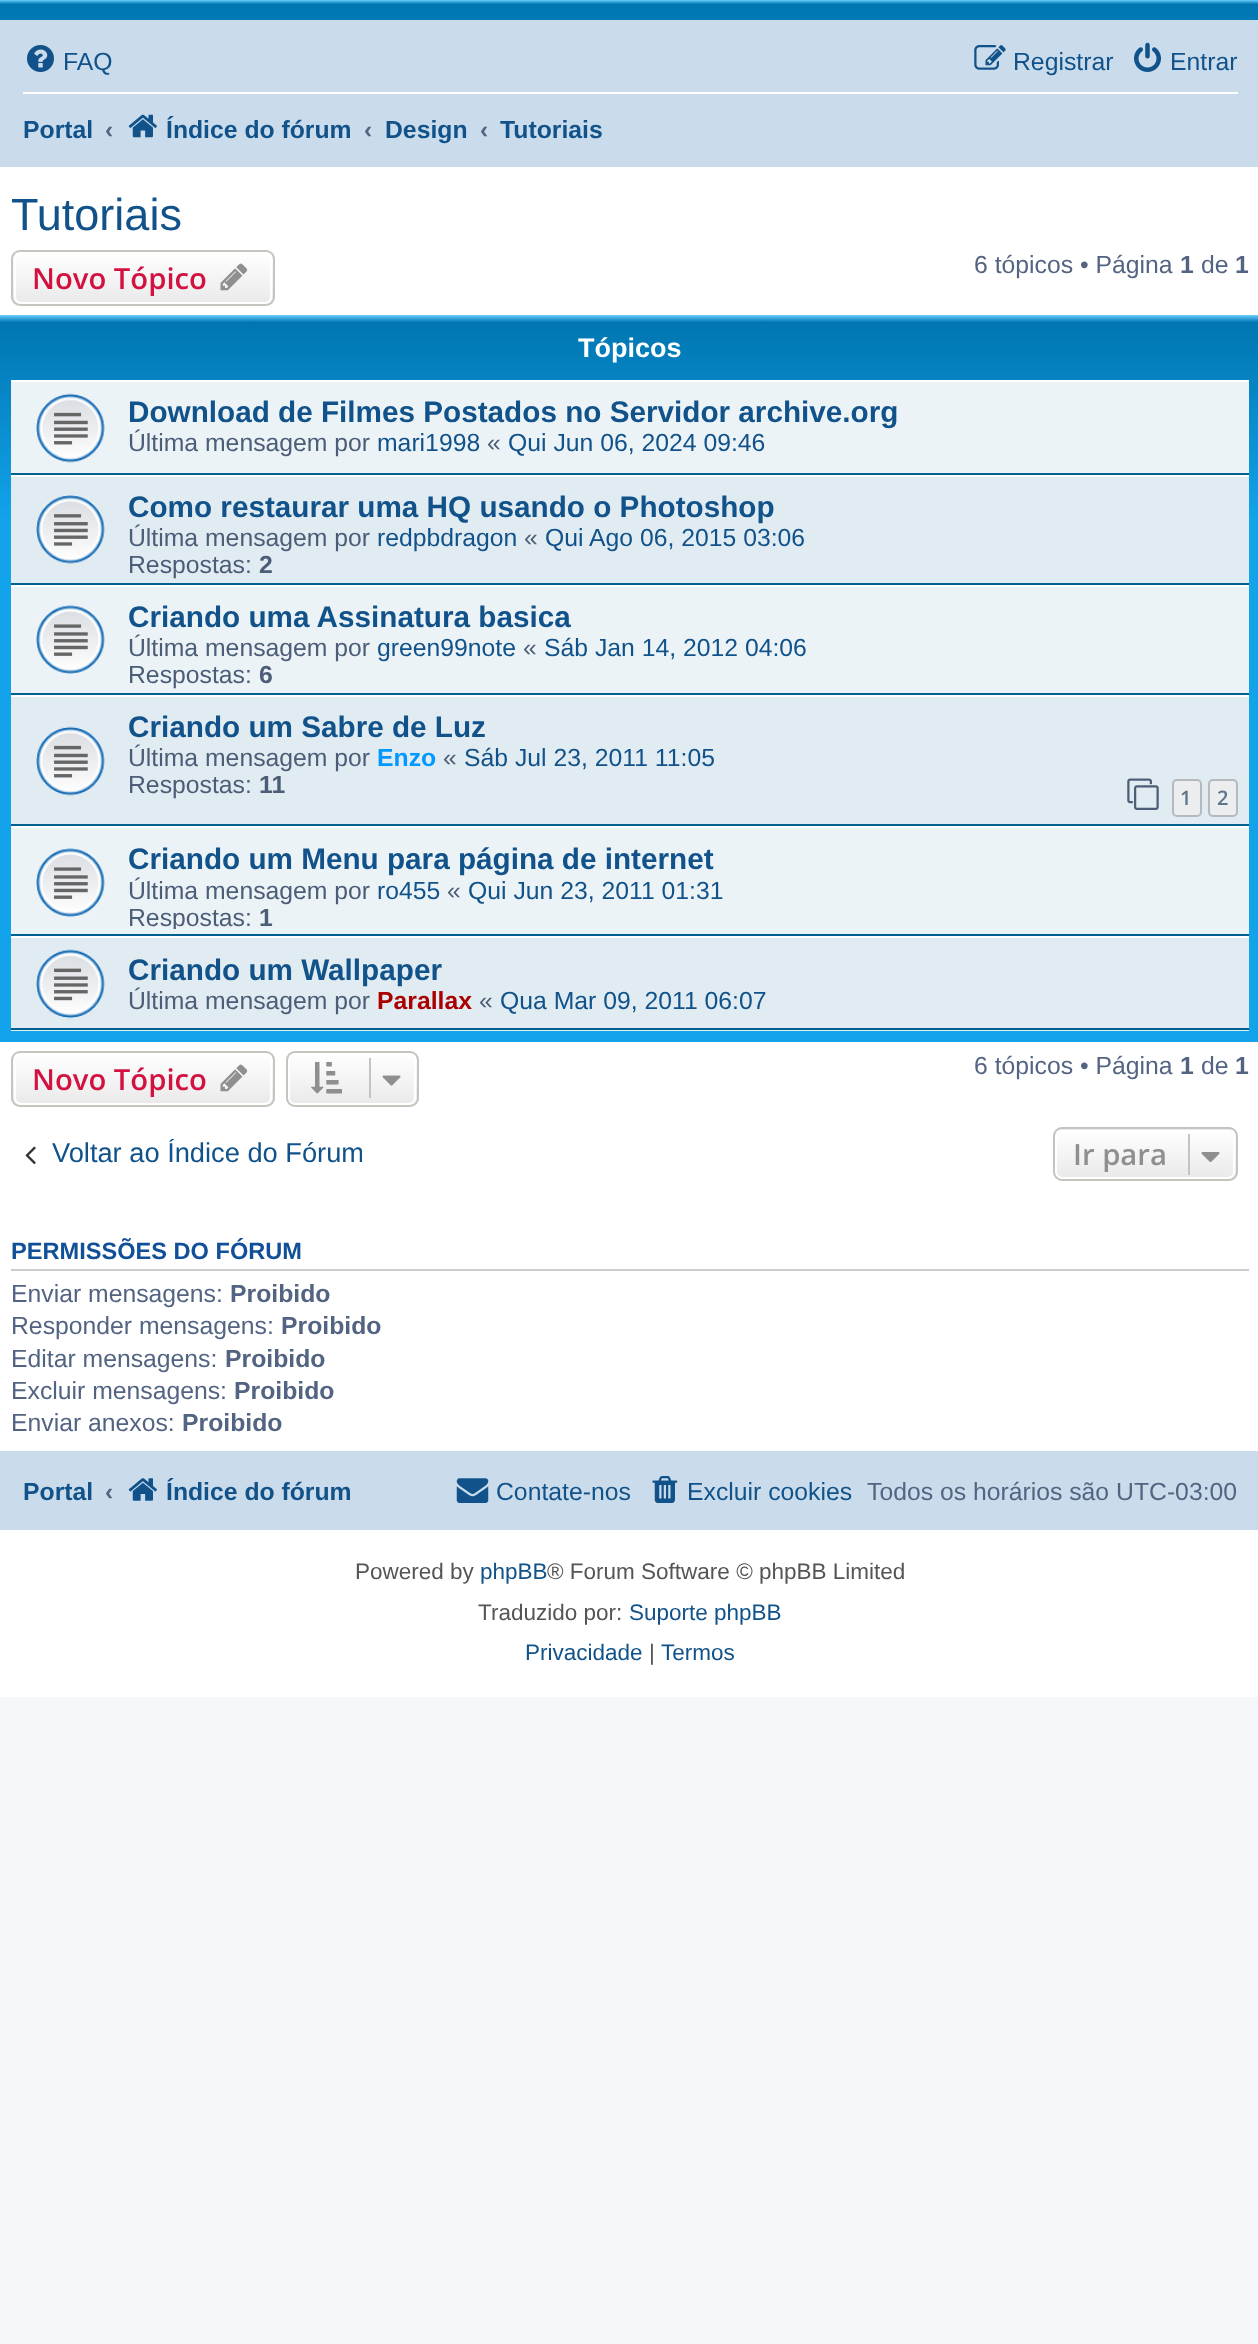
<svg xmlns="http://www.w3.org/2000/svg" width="1258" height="2344">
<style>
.a{font:24.75px Liberation Sans;fill:#105289}
.b{font:bold 24.75px Liberation Sans;fill:#105289}
.c{font:bold 24.75px Liberation Sans;fill:#536482}
.d{font:45px Liberation Sans;fill:#105289}
.e{font:600 29.25px Open Sans;fill:#d31141}
.f{font:24.75px Liberation Sans;fill:#536482}
.g{font:bold 27px Liberation Sans;fill:#fff}
.h{font:bold 29.7px Liberation Sans;fill:#105289}
.i{font:24.75px Liberation Sans;fill:#4c5d77}
.j{font:bold 24.75px Liberation Sans;fill:#4c5d77}
.k{font:bold 24.75px Liberation Sans;fill:#09f}
.l{font:600 20px Open Sans;fill:#5c758c}
.m{font:bold 24.75px Liberation Sans;fill:#a00}
.n{font:27.25px Liberation Sans;fill:#105289}
.o{font:600 29.25px Open Sans;fill:#8f8f8f}
.p{font:bold 23.6px Liberation Sans;fill:#115098}
.q{font:22.5px Liberation Sans;fill:#555}
.r{font:22.5px Liberation Sans;fill:#105289}
</style>
<defs>
<linearGradient id="g1" gradientUnits="userSpaceOnUse" x1="630" y1="0" x2="630" y2="207"><stop offset="0" stop-color="#6aceff"/><stop offset="0.02" stop-color="#0076b1"/><stop offset="1" stop-color="#12a3eb"/></linearGradient>
<clipPath id="clip1"><rect x="11" y="250" width="264" height="56" rx="9"/></clipPath>
<linearGradient id="g2" gradientUnits="userSpaceOnUse" x1="143" y1="252" x2="143" y2="304"><stop offset="0" stop-color="#fff"/><stop offset="1" stop-color="#e9e9e9"/></linearGradient>
<linearGradient id="g3" gradientUnits="userSpaceOnUse" x1="630" y1="315" x2="630" y2="1042"><stop offset="0" stop-color="#6aceff"/><stop offset="0.01" stop-color="#0076b1"/><stop offset="0.28" stop-color="#12a3eb"/><stop offset="1" stop-color="#12a3eb"/></linearGradient>
<clipPath id="clip2"><rect x="11" y="1051" width="264" height="56" rx="9"/></clipPath>
<linearGradient id="g4" gradientUnits="userSpaceOnUse" x1="143" y1="1053" x2="143" y2="1105"><stop offset="0" stop-color="#fff"/><stop offset="1" stop-color="#e9e9e9"/></linearGradient>
<clipPath id="clip3"><rect x="286" y="1051" width="133" height="56" rx="9"/></clipPath>
<linearGradient id="g5" gradientUnits="userSpaceOnUse" x1="352" y1="1053" x2="352" y2="1105"><stop offset="0" stop-color="#fff"/><stop offset="1" stop-color="#e9e9e9"/></linearGradient>
<clipPath id="clip4"><rect x="1053" y="1127" width="185" height="54" rx="9"/></clipPath>
<linearGradient id="g6" gradientUnits="userSpaceOnUse" x1="1145" y1="1080" x2="1145" y2="1130"><stop offset="0" stop-color="#fff"/><stop offset="1" stop-color="#e9e9e9"/></linearGradient>
<linearGradient id="g7" gradientUnits="userSpaceOnUse" x1="1145" y1="1130" x2="1145" y2="1179"><stop offset="0" stop-color="#fff"/><stop offset="1" stop-color="#e9e9e9"/></linearGradient>
<clipPath id="clip5"><path d="M11 833h1238v96H11z"/></clipPath>
<clipPath id="clip6"><path d="M11 1139h351v33H11z"/></clipPath>
</defs>
<rect width="100%" height="100%" fill="#f5f7fa"/>
<path fill="#fff" d="M0 167h1258v1530H0z"/>
<path fill="url(#g1)" d="M0 0h1258v20H0z"/>
<path fill="#cadceb" d="M0 20h1258v147H0z"/>
<image href="1.png" x="27" y="45" width="27" height="27"/>
<image href="2.png" x="974" y="45" width="32" height="25"/>
<image href="3.png" x="1134" y="42" width="27" height="30"/>
<path fill="#fff" d="M23 92h1215v2H23z"/>
<image href="4.png" x="128" y="114" width="29" height="24"/>
<g clip-path="url(#clip1)">
<path fill="url(#g2)" d="M11 252h264v52H11z"/>
</g>
<rect fill="none" stroke="#fff" stroke-width="2" x="15" y="253" width="256" height="50" rx="6"/>
<rect fill="none" stroke="#c7c3bf" stroke-width="2" x="12" y="251" width="262" height="54" rx="8"/>
<image href="5.png" x="220" y="263" width="28" height="28"/>
<path fill="url(#g3)" d="M0 315h1258v727H0z"/>
<path fill="#ecf3f7" d="M11 382h1238v91H11z"/>
<path fill="#fff" d="M11 380h1238v2H11z"/>
<path fill="#00608f" d="M11 473h1238v2H11z"/>
<image href="6.png" x="36" y="393" width="69" height="70"/>
<path fill="#e1ebf2" d="M11 477h1238v106H11z"/>
<path fill="#fff" d="M11 475h1238v2H11z"/>
<path fill="#00608f" d="M11 583h1238v2H11z"/>
<image href="7.png" x="36" y="495" width="69" height="69"/>
<path fill="#ecf3f7" d="M11 587h1238v106H11z"/>
<path fill="#fff" d="M11 585h1238v2H11z"/>
<path fill="#00608f" d="M11 693h1238v2H11z"/>
<image href="8.png" x="36" y="605" width="69" height="69"/>
<path fill="#e1ebf2" d="M11 697h1238v127H11z"/>
<path fill="#fff" d="M11 695h1238v2H11z"/>
<path fill="#00608f" d="M11 824h1238v2H11z"/>
<image href="9.png" x="36" y="726" width="69" height="70"/>
<image href="10.png" x="1127" y="778" width="32" height="32"/>
<rect fill="#ecedee" stroke="#b4bac0" stroke-width="2" x="1173" y="780" width="28" height="36" rx="4"/>
<rect fill="#ecedee" stroke="#b4bac0" stroke-width="2" x="1209" y="780" width="28" height="36" rx="4"/>
<path fill="#ecf3f7" d="M11 828h1238v106H11z"/>
<path fill="#fff" d="M11 826h1238v2H11z"/>
<path fill="#00608f" d="M11 934h1238v2H11z"/>
<image href="8.png" x="36" y="848" width="69" height="69"/>
<path fill="#e1ebf2" d="M11 938h1238v93H11z"/>
<path fill="#fff" d="M11 936h1238v2H11z"/>
<path fill="#00608f" d="M11 1028h1238v2H11z"/>
<image href="11.png" x="36" y="949" width="69" height="70"/>
<g clip-path="url(#clip2)">
<path fill="url(#g4)" d="M11 1053h264v52H11z"/>
</g>
<rect fill="none" stroke="#fff" stroke-width="2" x="15" y="1054" width="256" height="50" rx="6"/>
<rect fill="none" stroke="#c7c3bf" stroke-width="2" x="12" y="1052" width="262" height="54" rx="8"/>
<image href="5.png" x="220" y="1064" width="28" height="28"/>
<g clip-path="url(#clip3)">
<path fill="url(#g5)" d="M286 1053h133v52H286z"/>
</g>
<rect fill="none" stroke="#fff" stroke-width="2" x="289" y="1054" width="126" height="50" rx="6"/>
<rect fill="none" stroke="#c7c3bf" stroke-width="2" x="287" y="1052" width="131" height="54" rx="8"/>
<image href="12.png" x="311" y="1062" width="31" height="32"/>
<path fill="#c7c3bf" d="M369 1058h2v40H369z"/>
<image href="13.png" x="382" y="1075" width="19" height="11"/>
<image href="14.png" x="25" y="1146" width="11" height="19"/>
<g clip-path="url(#clip4)">
<path fill="url(#g6)" d="M1053 1127h185v3H1053z"/>
<path fill="url(#g7)" d="M1053 1130h185v49H1053z"/>
</g>
<rect fill="none" stroke="#fff" stroke-width="2" x="1056" y="1131" width="178" height="47" rx="6"/>
<rect fill="none" stroke="#c7c3bf" stroke-width="2" x="1054" y="1128" width="183" height="52" rx="8"/>
<path fill="#c7c3bf" d="M1188 1134h2v41H1188z"/>
<image href="15.png" x="1201" y="1152" width="19" height="11"/>
<path fill="#ccc" d="M11 1269h1238v2H11z"/>
<path fill="#cadceb" d="M0 1451h1258v79H0z"/>
<image href="16.png" x="128" y="1478" width="29" height="23"/>
<image href="17.png" x="456" y="1478" width="33" height="25"/>
<image href="18.png" x="652" y="1476" width="26" height="27"/>
<text class="a" x="63" y="70">FAQ</text>
<text class="a" x="1013" y="70">Registrar</text>
<text class="a" x="1170" y="70">Entrar</text>
<text class="b" x="23" y="138">Portal</text>
<text class="c" x="105" y="138">‹</text>
<text class="b" x="166" y="138">Índice do fórum</text>
<text class="c" x="364" y="138">‹</text>
<text class="b" x="385" y="138">Design</text>
<text class="c" x="480" y="138">‹</text>
<text class="b" x="500" y="138">Tutoriais</text>
<text class="d" x="11" y="230">Tutoriais</text>
<text class="e" x="32" y="289">Novo Tópico</text>
<text class="f" x="974" y="273">6 tópicos • Página</text>
<text class="c" x="1180" y="273">1</text>
<text class="f" x="1201" y="273">de</text>
<text class="c" x="1235" y="273">1</text>
<text class="g" x="578" y="357">Tópicos</text>
<text class="h" x="128" y="422">Download de Filmes Postados no Servidor archive.org</text>
<text class="i" x="128" y="451">Última mensagem por</text>
<text class="a" x="377" y="451">mari1998</text>
<text class="i" x="487" y="451">«</text>
<text class="a" x="508" y="451">Qui Jun 06, 2024 09:46</text>
<text class="h" x="128" y="517">Como restaurar uma HQ usando o Photoshop</text>
<text class="i" x="128" y="546">Última mensagem por</text>
<text class="a" x="377" y="546">redpbdragon</text>
<text class="i" x="524" y="546">«</text>
<text class="a" x="545" y="546">Qui Ago 06, 2015 03:06</text>
<text class="i" x="128" y="573">Respostas:</text>
<text class="j" x="259" y="573">2</text>
<text class="h" x="128" y="627">Criando uma Assinatura basica</text>
<text class="i" x="128" y="656">Última mensagem por</text>
<text class="a" x="377" y="656">green99note</text>
<text class="i" x="523" y="656">«</text>
<text class="a" x="544" y="656">Sáb Jan 14, 2012 04:06</text>
<text class="i" x="128" y="683">Respostas:</text>
<text class="j" x="259" y="683">6</text>
<text class="h" x="128" y="737">Criando um Sabre de Luz</text>
<text class="i" x="128" y="766">Última mensagem por</text>
<text class="k" x="377" y="766">Enzo</text>
<text class="i" x="443" y="766">«</text>
<text class="a" x="464" y="766">Sáb Jul 23, 2011 11:05</text>
<text class="i" x="128" y="793">Respostas:</text>
<text class="j" x="259" y="793">11</text>
<text class="l" x="1180" y="805">1</text>
<text class="l" x="1217" y="805">2</text>
<text class="h" x="128" y="869">Criando um Menu para página de internet</text>
<text class="i" x="128" y="899">Última mensagem por</text>
<text class="a" x="377" y="899">ro455</text>
<text class="i" x="447" y="899">«</text>
<text class="a" x="468" y="899">Qui Jun 23, 2011 01:31</text>
<g clip-path="url(#clip5)">
<text class="i" x="128" y="926">Respostas:</text>
</g>
<text class="j" x="259" y="926">1</text>
<text class="h" x="128" y="980">Criando um Wallpaper</text>
<text class="i" x="128" y="1009">Última mensagem por</text>
<text class="m" x="377" y="1009">Parallax</text>
<text class="i" x="479" y="1009">«</text>
<text class="a" x="500" y="1009">Qua Mar 09, 2011 06:07</text>
<text class="e" x="32" y="1090">Novo Tópico</text>
<text class="f" x="974" y="1074">6 tópicos • Página</text>
<text class="c" x="1180" y="1074">1</text>
<text class="f" x="1201" y="1074">de</text>
<text class="c" x="1235" y="1074">1</text>
<g clip-path="url(#clip6)">
<text class="n" x="52" y="1162">Voltar ao Índice do Fórum</text>
</g>
<text class="o" x="1073" y="1165">Ir para</text>
<text class="p" x="11" y="1259">PERMISSÕES DO FÓRUM</text>
<text class="f" x="11" y="1302">Enviar mensagens:</text>
<text class="c" x="230" y="1302">Proibido</text>
<text class="f" x="11" y="1334">Responder mensagens:</text>
<text class="c" x="281" y="1334">Proibido</text>
<text class="f" x="11" y="1367">Editar mensagens:</text>
<text class="c" x="225" y="1367">Proibido</text>
<text class="f" x="11" y="1399">Excluir mensagens:</text>
<text class="c" x="234" y="1399">Proibido</text>
<text class="f" x="11" y="1431">Enviar anexos:</text>
<text class="c" x="182" y="1431">Proibido</text>
<text class="b" x="23" y="1500">Portal</text>
<text class="c" x="105" y="1500">‹</text>
<text class="b" x="166" y="1500">Índice do fórum</text>
<text class="a" x="496" y="1500">Contate-nos</text>
<text class="a" x="687" y="1500">Excluir cookies</text>
<text class="f" x="867" y="1500">Todos os horários são UTC-03:00</text>
<text class="q" x="355" y="1579">Powered by</text>
<text class="r" x="480" y="1579">phpBB</text>
<text class="q" x="547" y="1579">® Forum Software © phpBB Limited</text>
<text class="q" x="478" y="1620">Traduzido por:</text>
<text class="r" x="629" y="1620">Suporte phpBB</text>
<text class="r" x="525" y="1660">Privacidade</text>
<text class="q" x="649" y="1660">|</text>
<text class="r" x="661" y="1660">Termos</text>
</svg>
